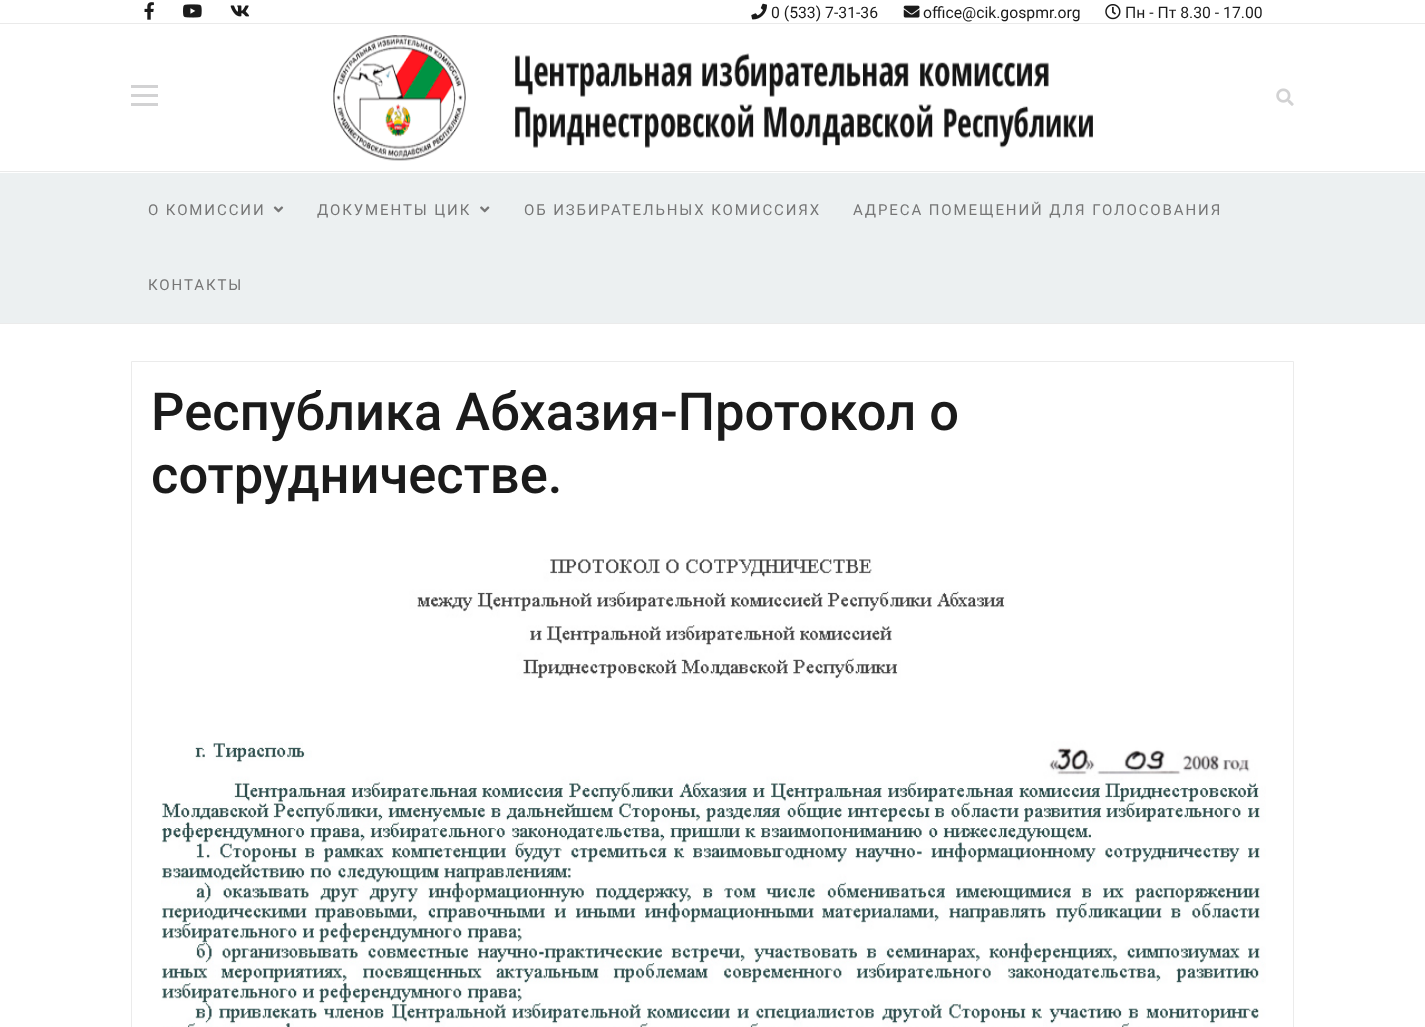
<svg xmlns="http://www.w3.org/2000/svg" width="1425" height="1027">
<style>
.a{font:15.75px Roboto;fill:#1b1b1b}
.b{font:15px Roboto;letter-spacing:1.9px;fill:#767676}
.c{font:500 52.5px Roboto;fill:#1b1b1b}
</style>
<rect width="100%" height="100%" fill="#fff"/>
<image href="1.png" x="144" y="2" width="10" height="18"/>
<image href="2.png" x="183" y="4" width="19" height="14"/>
<image href="3.png" x="230" y="5" width="19" height="12"/>
<image href="4.png" x="751" y="3" width="16" height="17"/>
<image href="5.png" x="903" y="5" width="17" height="13"/>
<image href="6.png" x="1105" y="4" width="16" height="16"/>
<path fill="#eaeaea" d="M0 23h1425v1H0z"/>
<path fill="#eaeaea" d="M0 171h1425v1H0z"/>
<path fill="#d2d2d3" d="M131 85h27v3H131z"/>
<path fill="#d2d2d3" d="M131 94h27v3H131z"/>
<path fill="#d2d2d3" d="M131 103h27v3H131z"/>
<image href="7.png" x="333" y="35" width="760" height="126"/>
<image href="8.png" x="1276" y="88" width="18" height="18"/>
<path fill="#ecf0f1" d="M0 173h1425v150H0z"/>
<path fill="#ebebeb" d="M0 323h1425v1H0z"/>
<image href="9.png" x="273" y="206" width="11" height="7"/>
<image href="10.png" x="480" y="206" width="10" height="7"/>
<path fill="none" stroke="#ebebeb" d="M131.5 361.5h1162v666H131.5z"/>
<image href="11.png" x="161" y="559" width="1105" height="468"/>
<text class="a" x="771" y="18">0 (533) 7-31-36</text>
<text class="a" x="923" y="18">office@cik.gospmr.org</text>
<text class="a" x="1125" y="18">Пн - Пт 8.30 - 17.00</text>
<text class="b" x="148" y="215">О КОМИССИИ</text>
<text class="b" x="317" y="215">ДОКУМЕНТЫ ЦИК</text>
<text class="b" x="524" y="215">ОБ ИЗБИРАТЕЛЬНЫХ КОМИССИЯХ</text>
<text class="b" x="853" y="215">АДРЕСА ПОМЕЩЕНИЙ ДЛЯ ГОЛОСОВАНИЯ</text>
<text class="b" x="148" y="290">КОНТАКТЫ</text>
<text class="c" x="151" y="430">Республика Абхазия-Протокол о</text>
<text class="c" x="151" y="493">сотрудничестве.</text>
</svg>
